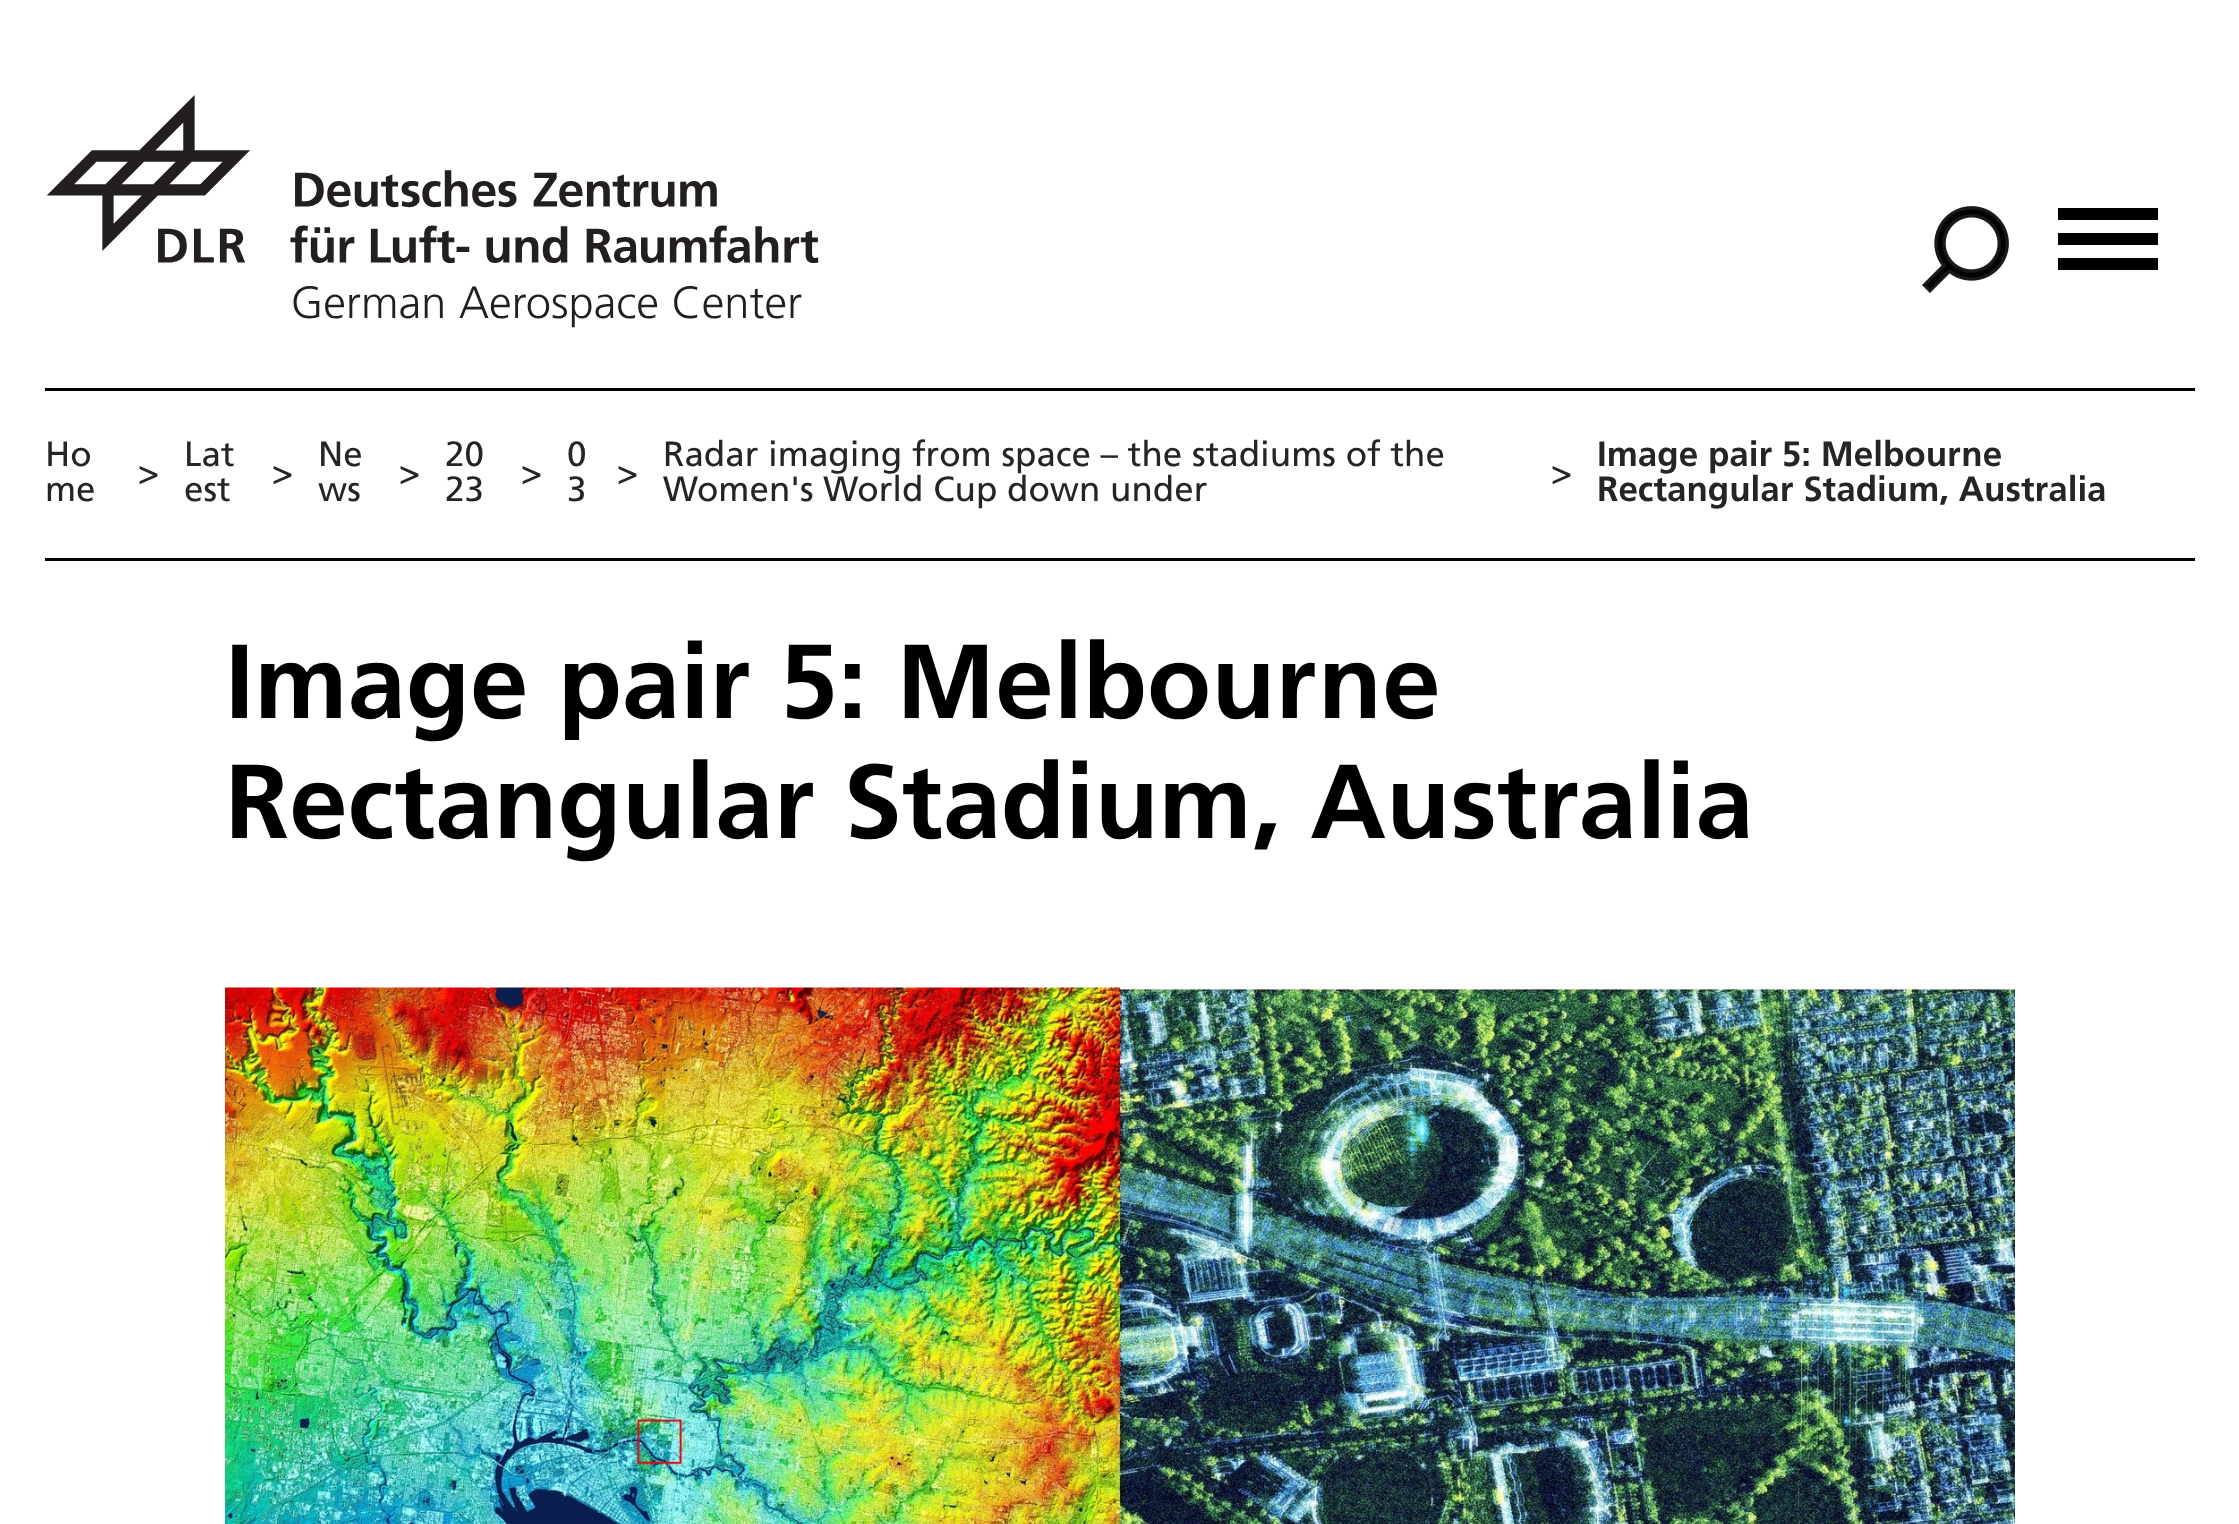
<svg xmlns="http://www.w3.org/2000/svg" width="2239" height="1524">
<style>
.a{font:35px Frutiger;fill:#252525}
.b{font:bold 35px Frutiger;fill:#252525}
.c{font:bold 105px Frutiger;fill:#000}
</style>
<rect width="100%" height="100%" fill="#fff"/>
<image href="1.png" x="46" y="95" width="773" height="233"/>
<image href="2.png" x="1922" y="206" width="87" height="87"/>
<path fill="#000" d="M2058 258h100v12H2058z"/>
<path fill="#000" d="M2058 208h100v12H2058z"/>
<path fill="#000" d="M2058 233h100v12H2058z"/>
<path fill="#000" d="M45 388h2150v3H45z"/>
<path fill="#000" d="M45 558h2150v3H45z"/>
<image href="3.png" x="225" y="987" width="1790" height="537"/>
<text class="a" x="45" y="466">Ho</text>
<text class="a" x="45" y="501">me</text>
<text class="a" x="138" y="484">&gt;</text>
<text class="a" x="184" y="466">Lat</text>
<text class="a" x="184" y="501">est</text>
<text class="a" x="272" y="484">&gt;</text>
<text class="a" x="318" y="466">Ne</text>
<text class="a" x="318" y="501">ws</text>
<text class="a" x="399" y="484">&gt;</text>
<text class="a" x="445" y="466">20</text>
<text class="a" x="445" y="501">23</text>
<text class="a" x="521" y="484">&gt;</text>
<text class="a" x="567" y="466">0</text>
<text class="a" x="567" y="501">3</text>
<text class="a" x="617" y="484">&gt;</text>
<text class="a" x="663" y="466">Radar imaging from space – the stadiums of the</text>
<text class="a" x="663" y="501">Women's World Cup down under</text>
<text class="a" x="1551" y="484">&gt;</text>
<text class="b" x="1597" y="466">Image pair 5: Melbourne</text>
<text class="b" x="1597" y="501">Rectangular Stadium, Australia</text>
<text class="c" x="225" y="718">Image pair 5: Melbourne</text>
<text class="c" x="225" y="838">Rectangular Stadium, Australia</text>
</svg>
